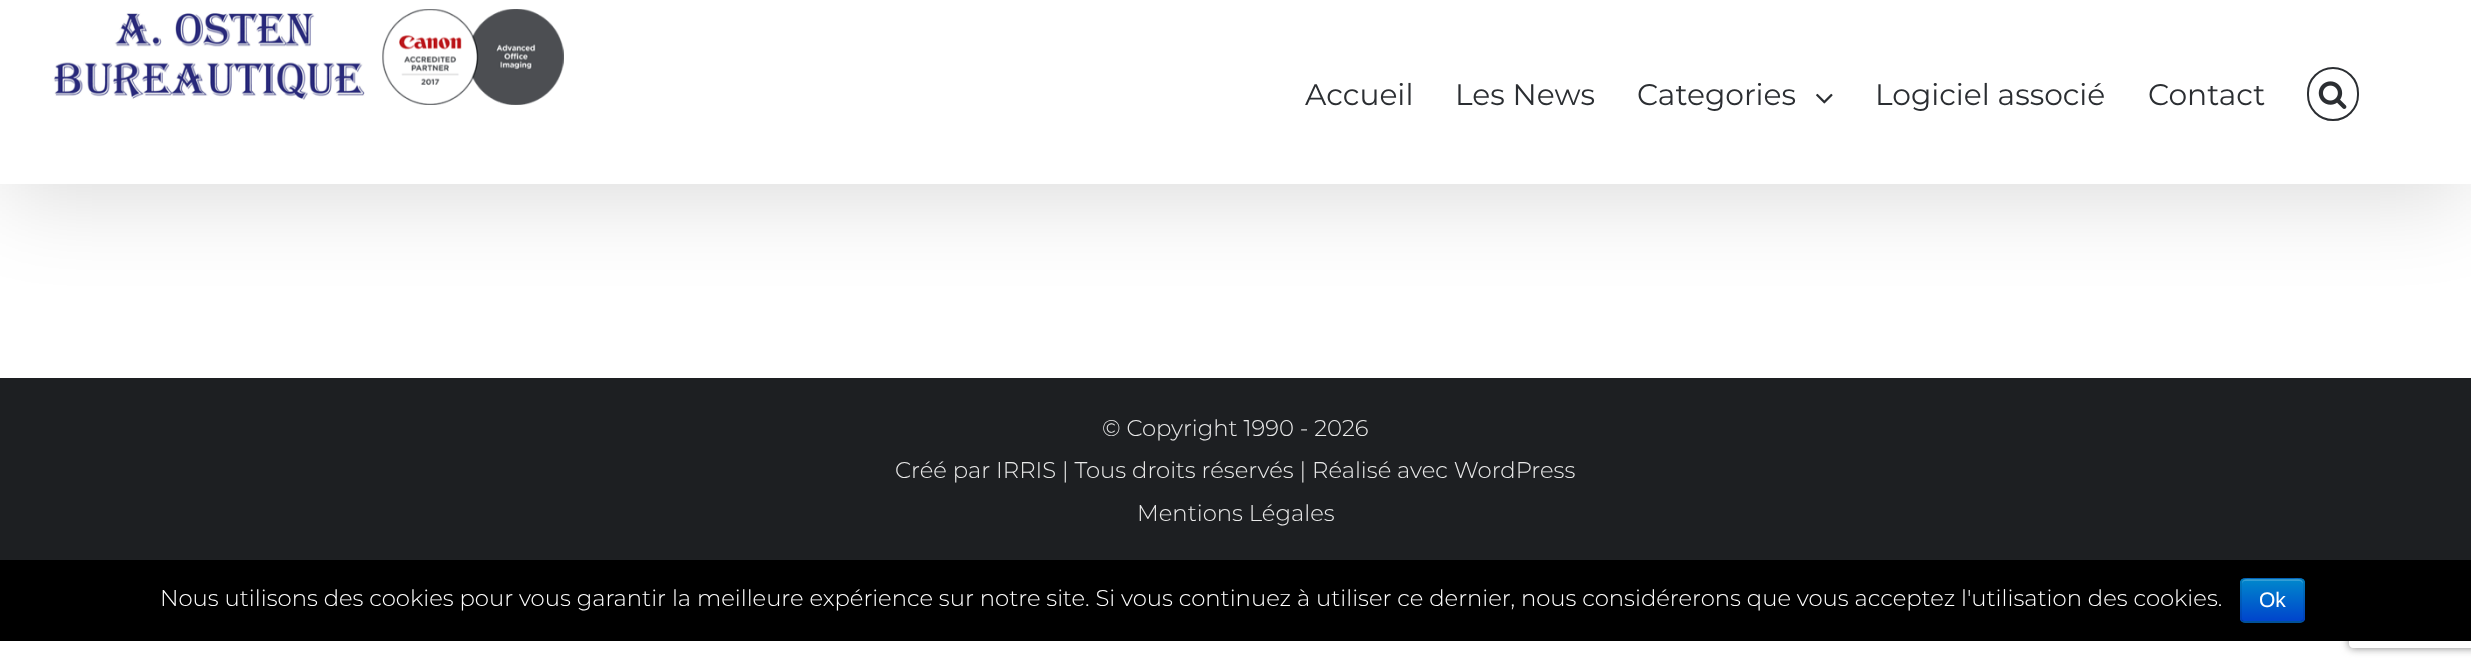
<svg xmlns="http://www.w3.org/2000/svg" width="2471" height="672">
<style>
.a{font:29.75px Montserrat;fill:#2b2e32}
.b{font:300 22.75px Montserrat;fill:#eaeaea}
.c{font:300 22.75px Montserrat;fill:#fff}
.d{font:21px Liberation Sans;fill:#fff}
</style>
<defs>
<clipPath id="clip1"><path d="M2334 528h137v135h-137zm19 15h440c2 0 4 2 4 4v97c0 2-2 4-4 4h-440c-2 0-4-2-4-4v-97c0-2 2-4 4-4z" clip-rule="evenodd"/></clipPath>
<clipPath id="clip2"><rect x="2240" y="578" width="65" height="45" rx="5"/></clipPath>
<linearGradient id="g1" gradientUnits="userSpaceOnUse" x1="2272" y1="579" x2="2272" y2="621"><stop offset="0" stop-color="#08c"/><stop offset="1" stop-color="#04c"/></linearGradient>
</defs>
<rect width="100%" height="100%" fill="#fff"/>
<path fill="#00000024" filter="blur(44px)" d="M4 21h2464v177H4z"/>
<path fill="#fff" d="M0 0h2471v184H0z"/>
<image href="1.png" x="53" y="9" width="511" height="96"/>
<image href="2.png" x="1816" y="93" width="17" height="11"/>
<rect fill="none" stroke="#2b2e32" stroke-width="2" x="2308" y="68" width="50" height="52" rx="25"/>
<image href="3.png" x="2318" y="81" width="29" height="28"/>
<g clip-path="url(#clip1)">
<rect fill="#808080" filter="blur(4.5px)" x="2349" y="543" width="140" height="105" rx="4"/>
</g>
<path fill="#1d1f22" d="M0 378h2471v182H0z"/>
<path fill="#000" d="M0 560h2471v81H0z"/>
<rect fill="#006dcc" x="2240" y="578" width="65" height="45" rx="5"/>
<g clip-path="url(#clip2)">
<path fill="url(#g1)" d="M2240 579h65v42H2240z"/>
</g>
<path fill="#ffffff33" d="M2245 581h55c1 0 3 2 3 3c0-7-8-5-13-5h-35c-5 0-13-2-13 5c0-1 1-3 3-3z"/>
<path fill="none" stroke="#00000040" stroke-width="1.8" d="M2302.5 621c-.5 .5-2 1-3 1h-54.5c-1 0-2-.5-3-1"/>
<path fill="none" stroke="#0000001a" stroke-width="1.8" d="M2242 621c-.5-1-1-2-1-3v-35c0-1.5 .5-2.5 1-3.5c1-.5 2-1 3-1h54.5c1 0 2.5 .5 3 1c1 1 1.5 2 1.5 3.5v35c0 1-.5 2-1.5 3"/>
<text class="a" x="1305" y="105">Accueil</text>
<text class="a" x="1455" y="105">Les News</text>
<text class="a" x="1637" y="105">Categories</text>
<text class="a" x="1875" y="105">Logiciel associé</text>
<text class="a" x="2148" y="105">Contact</text>
<text class="b" x="1102" y="436">© Copyright 1990 - 2026</text>
<text class="b" x="895" y="478">Créé par IRRIS | Tous droits réservés | Réalisé avec WordPress</text>
<text class="b" x="1137" y="521">Mentions Légales</text>
<text class="c" x="160" y="606">Nous utilisons des cookies pour vous garantir la meilleure expérience sur notre site. Si vous continuez à utiliser ce dernier, nous considérerons que vous acceptez l'utilisation des cookies.</text>
<text class="d" x="2259" y="607">Ok</text>
</svg>
